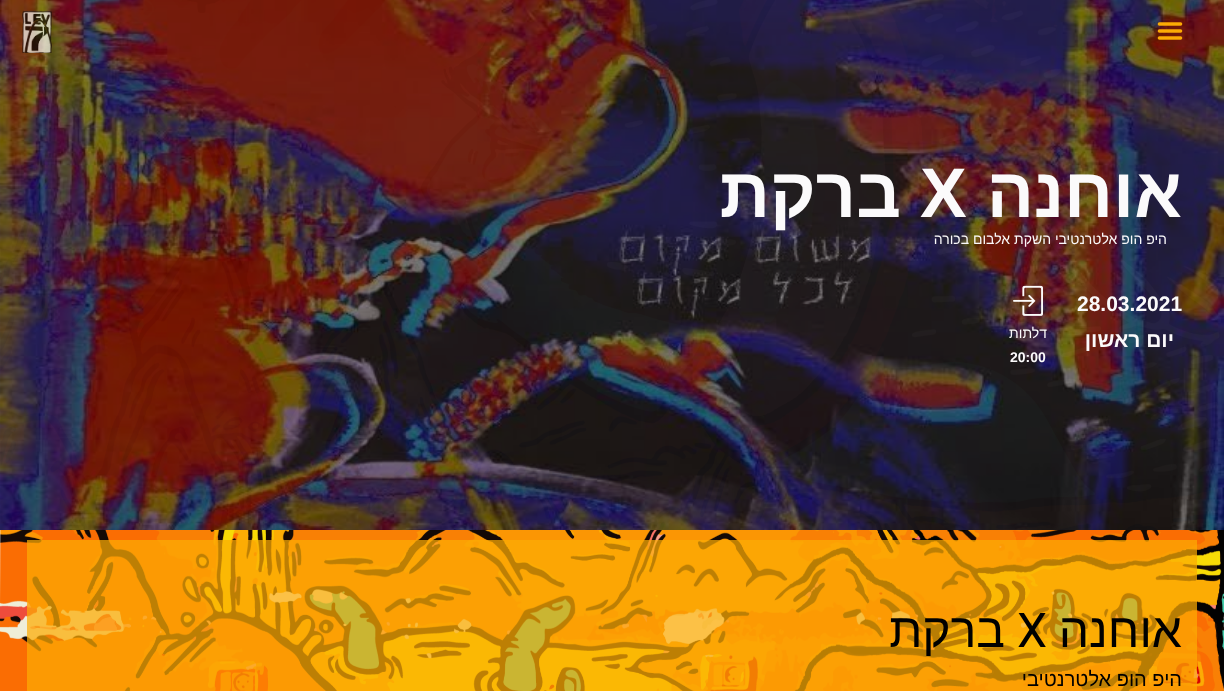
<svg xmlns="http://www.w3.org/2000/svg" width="1224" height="691">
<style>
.a{font:bold 70px Liberation Sans;direction:rtl;fill:#fbfafb}
.b{font:bold 70px Liberation Sans;fill:#fbfafb}
.c{font:14px Liberation Sans;direction:rtl;fill:#fbfafb}
.d{font:bold 21px Liberation Sans;fill:#fbfafb}
.e{font:bold 21px Liberation Sans;direction:rtl;fill:#fbfafb}
.f{font:bold 14px Liberation Sans;fill:#fbfafb}
.g{font:48px Liberation Sans;direction:rtl;fill:#000}
.h{font:48px Roboto;fill:#000}
.i{font:20px Liberation Sans;direction:rtl;fill:#000}
</style>
<rect width="100%" height="100%" fill="#fff"/>
<image href="1.png" x="0" y="0" width="1224" height="691"/>
<image href="4.png" x="0" y="0" width="1224" height="530"/>
<image href="2.png" x="1157" y="22" width="26" height="18"/>
<image href="3.png" x="22" y="10" width="30" height="43"/>
<image href="5.png" x="1013" y="285" width="30" height="31"/>
<path fill="#fcac04ba" d="M27 540h1170v151H27z"/>
<text class="a" x="1182" y="217">אוחנה</text>
<text class="b" x="920" y="217">X</text>
<text class="a" x="901" y="217">ברקת</text>
<text class="c" x="1167" y="244">היפ הופ אלטרנטיבי השקת אלבום בכורה</text>
<text class="d" x="1077" y="311">28.03.2021</text>
<text class="e" x="1174" y="347">יום ראשון</text>
<text class="c" x="1047" y="338">דלתות</text>
<text class="f" x="1010" y="362">20:00</text>
<text class="g" x="1182" y="647">אוחנה</text>
<text class="h" x="1017" y="647">X</text>
<text class="g" x="1005" y="647">ברקת</text>
<text class="i" x="1182" y="686">היפ הופ אלטרנטיבי</text>
</svg>
